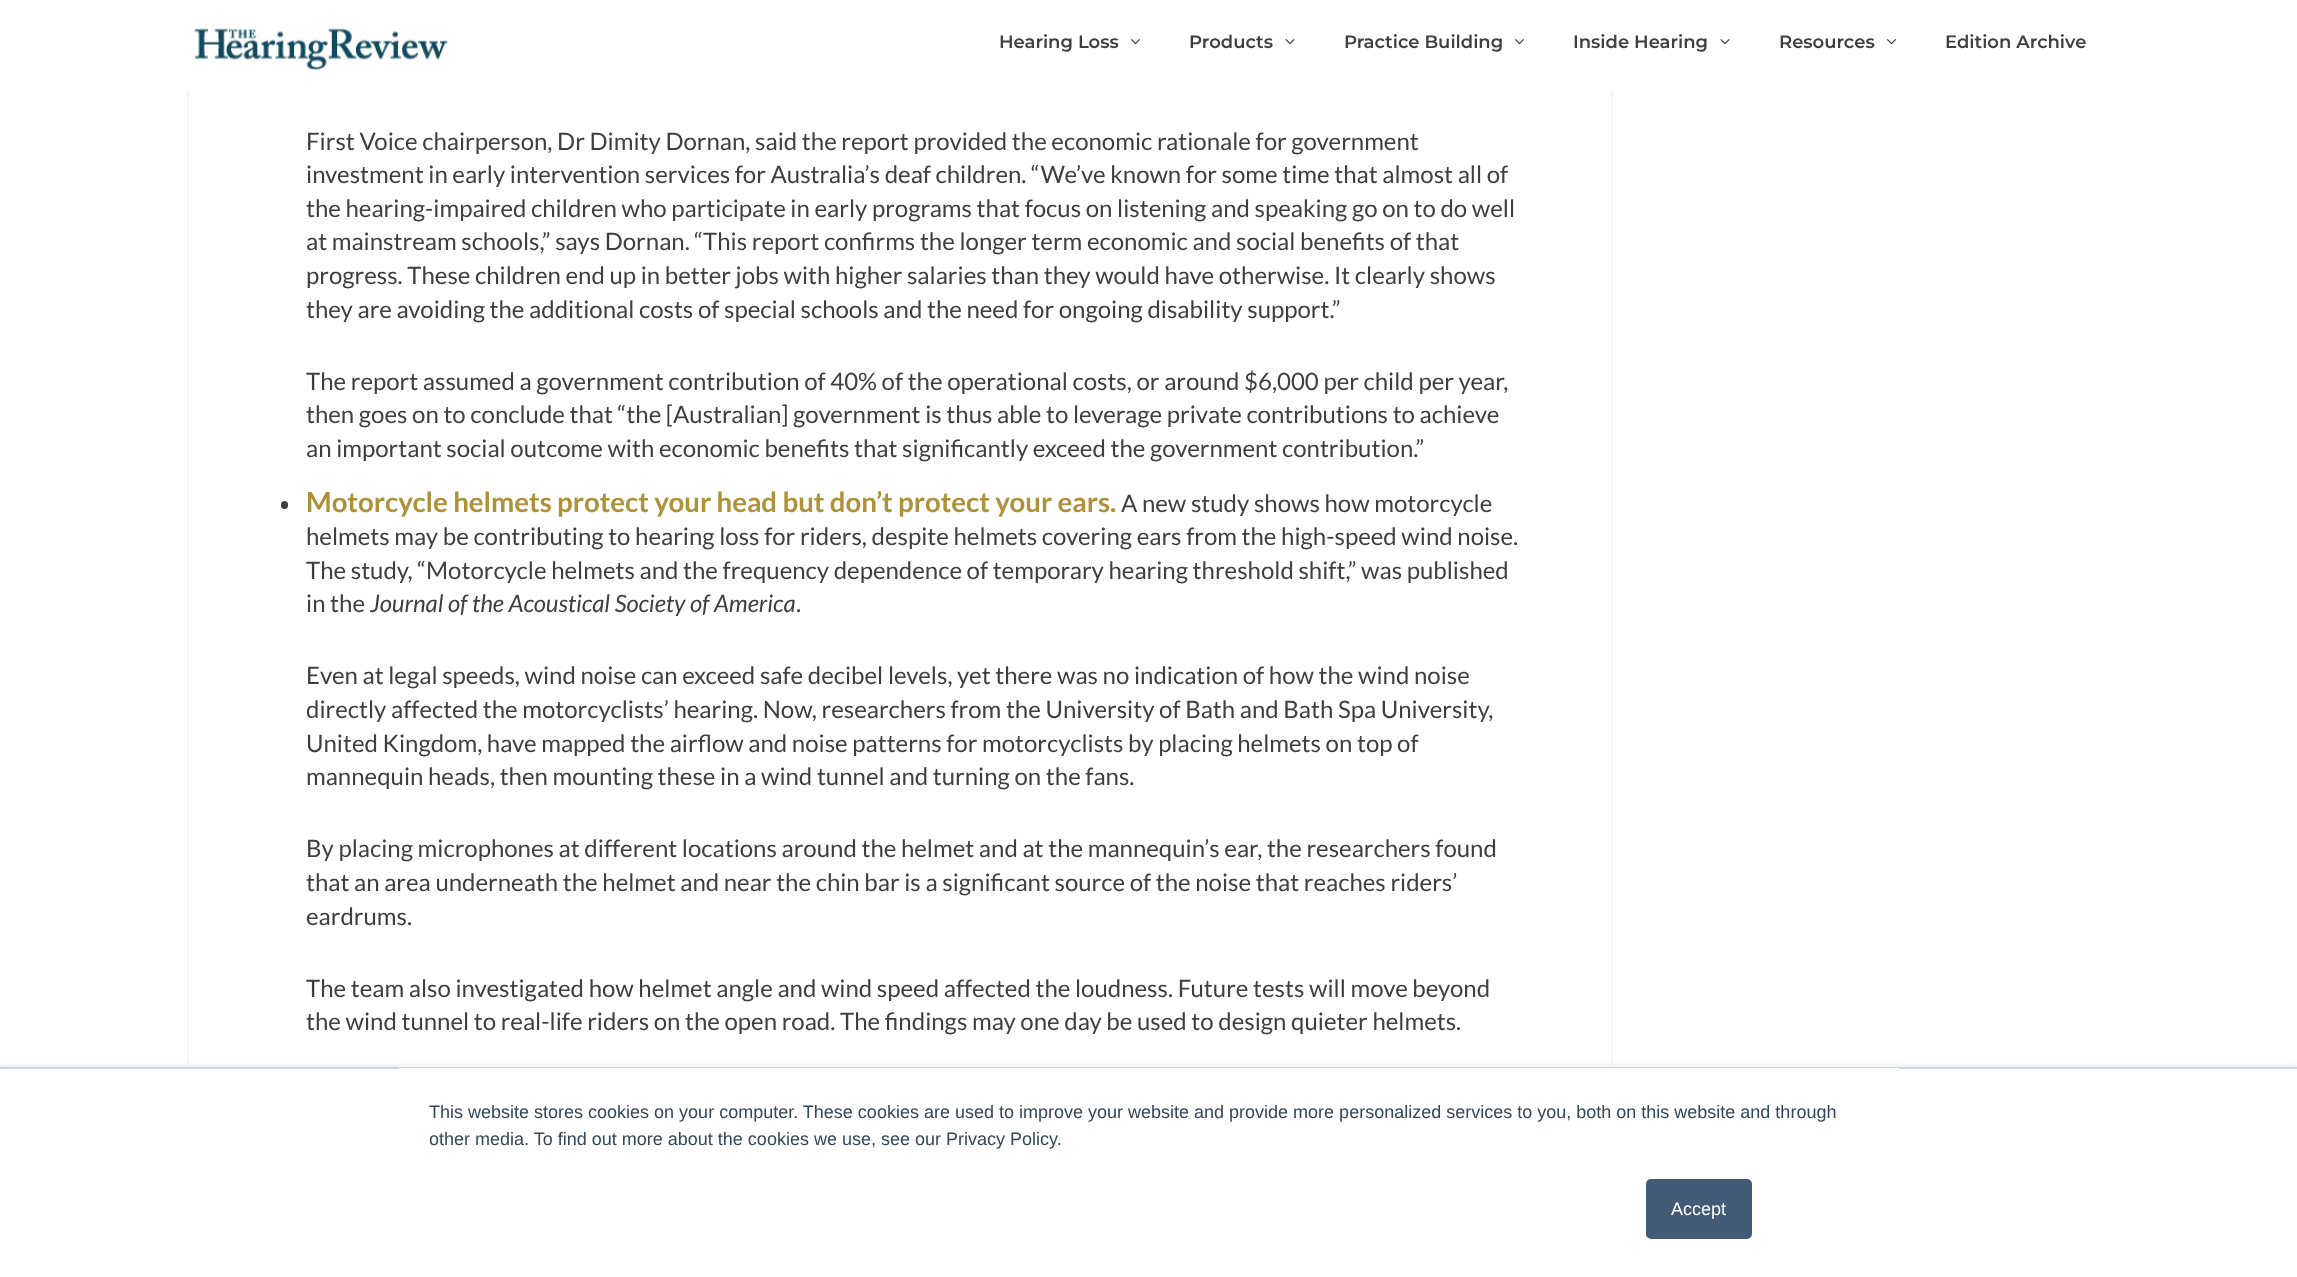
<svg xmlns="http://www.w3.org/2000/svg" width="2297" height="1277">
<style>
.a{font:100 18px Montserrat;fill:#403f40}
.b{font:24px Lato;fill:#403f40}
.c{font:bold 27.6px Lato;fill:#ad9239}
.d{font:italic 24px Lato;fill:#403f40}
.e{font:18px Liberation Sans;fill:#33475b}
.f{font:18px Liberation Sans;fill:#fff}
</style>
<defs>
<clipPath id="clip1"><path d="M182 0h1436v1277h-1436zm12-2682h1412c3 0 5 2 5 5v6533c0 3-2 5-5 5h-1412c-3 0-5-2-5-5v-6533c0-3 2-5 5-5z" clip-rule="evenodd"/></clipPath>
</defs>
<rect width="100%" height="100%" fill="#fff"/>
<g clip-path="url(#clip1)">
<rect fill="#0000001a" filter="blur(2px)" x="189" y="-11" width="1422" height="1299" rx="5"/>
</g>
<path fill="#fff" d="M186 0h1428v90H186z"/>
<image href="1.png" x="194" y="28" width="254" height="42"/>
<image href="2.png" x="1131" y="39" width="9" height="6"/>
<image href="3.png" x="1285" y="39" width="10" height="6"/>
<image href="2.png" x="1515" y="39" width="9" height="6"/>
<image href="3.png" x="1720" y="39" width="10" height="6"/>
<image href="2.png" x="1887" y="39" width="9" height="6"/>
<rect fill="#403f40" x="281" y="501" width="7" height="8" rx="3.5"/>
<path fill="#eaf0f6" filter="blur(2px)" d="M0 1065h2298v212H0z"/>
<path fill="#fff" d="M0 1069h2297v208H0z"/>
<path fill="#cbd6e2" d="M0 1067h2297v2H0z"/>
<path fill="#fff" d="M399 1068h1500v1H399z"/>
<rect fill="#425b76" stroke="#425b76" stroke-width="2" x="1647" y="1180" width="104" height="58" rx="4"/>
<text class="a" x="999" y="48">Hearing Loss</text>
<text class="a" x="1189" y="48">Products</text>
<text class="a" x="1344" y="48">Practice Building</text>
<text class="a" x="1573" y="48">Inside Hearing</text>
<text class="a" x="1779" y="48">Resources</text>
<text class="a" x="1945" y="48">Edition Archive</text>
<text class="b" x="306" y="150">First Voice chairperson, Dr Dimity Dornan, said the report provided the economic rationale for government</text>
<text class="b" x="306" y="183">investment in early intervention services for Australia’s deaf children. “We’ve known for some time that almost all of</text>
<text class="b" x="306" y="217">the hearing-impaired children who participate in early programs that focus on listening and speaking go on to do well</text>
<text class="b" x="306" y="250">at mainstream schools,” says Dornan. “This report confirms the longer term economic and social benefits of that</text>
<text class="b" x="306" y="284">progress. These children end up in better jobs with higher salaries than they would have otherwise. It clearly shows</text>
<text class="b" x="306" y="318">they are avoiding the additional costs of special schools and the need for ongoing disability support.”</text>
<text class="b" x="306" y="390">The report assumed a government contribution of 40% of the operational costs, or around $6,000 per child per year,</text>
<text class="b" x="306" y="423">then goes on to conclude that “the [Australian] government is thus able to leverage private contributions to achieve</text>
<text class="b" x="306" y="457">an important social outcome with economic benefits that significantly exceed the government contribution.”</text>
<text class="c" x="306" y="512">Motorcycle helmets protect your head but don’t protect your ears.</text>
<text class="b" x="1121" y="512">A new study shows how motorcycle</text>
<text class="b" x="306" y="545">helmets may be contributing to hearing loss for riders, despite helmets covering ears from the high-speed wind noise.</text>
<text class="b" x="306" y="579">The study, “Motorcycle helmets and the frequency dependence of temporary hearing threshold shift,” was published</text>
<text class="b" x="306" y="612">in the</text>
<text class="d" x="370" y="612">Journal of the Acoustical Society of America</text>
<text class="b" x="796" y="612">.</text>
<text class="b" x="306" y="684">Even at legal speeds, wind noise can exceed safe decibel levels, yet there was no indication of how the wind noise</text>
<text class="b" x="306" y="718">directly affected the motorcyclists’ hearing. Now, researchers from the University of Bath and Bath Spa University,</text>
<text class="b" x="306" y="752">United Kingdom, have mapped the airflow and noise patterns for motorcyclists by placing helmets on top of</text>
<text class="b" x="306" y="785">mannequin heads, then mounting these in a wind tunnel and turning on the fans.</text>
<text class="b" x="306" y="857">By placing microphones at different locations around the helmet and at the mannequin’s ear, the researchers found</text>
<text class="b" x="306" y="891">that an area underneath the helmet and near the chin bar is a significant source of the noise that reaches riders’</text>
<text class="b" x="306" y="925">eardrums.</text>
<text class="b" x="306" y="997">The team also investigated how helmet angle and wind speed affected the loudness. Future tests will move beyond</text>
<text class="b" x="306" y="1030">the wind tunnel to real-life riders on the open road. The findings may one day be used to design quieter helmets.</text>
<text class="e" x="429" y="1118">This website stores cookies on your computer. These cookies are used to improve your website and provide more personalized services to you, both on this website and through</text>
<text class="e" x="429" y="1145">other media. To find out more about the cookies we use, see our Privacy Policy.</text>
<text class="f" x="1671" y="1215">Accept</text>
</svg>
